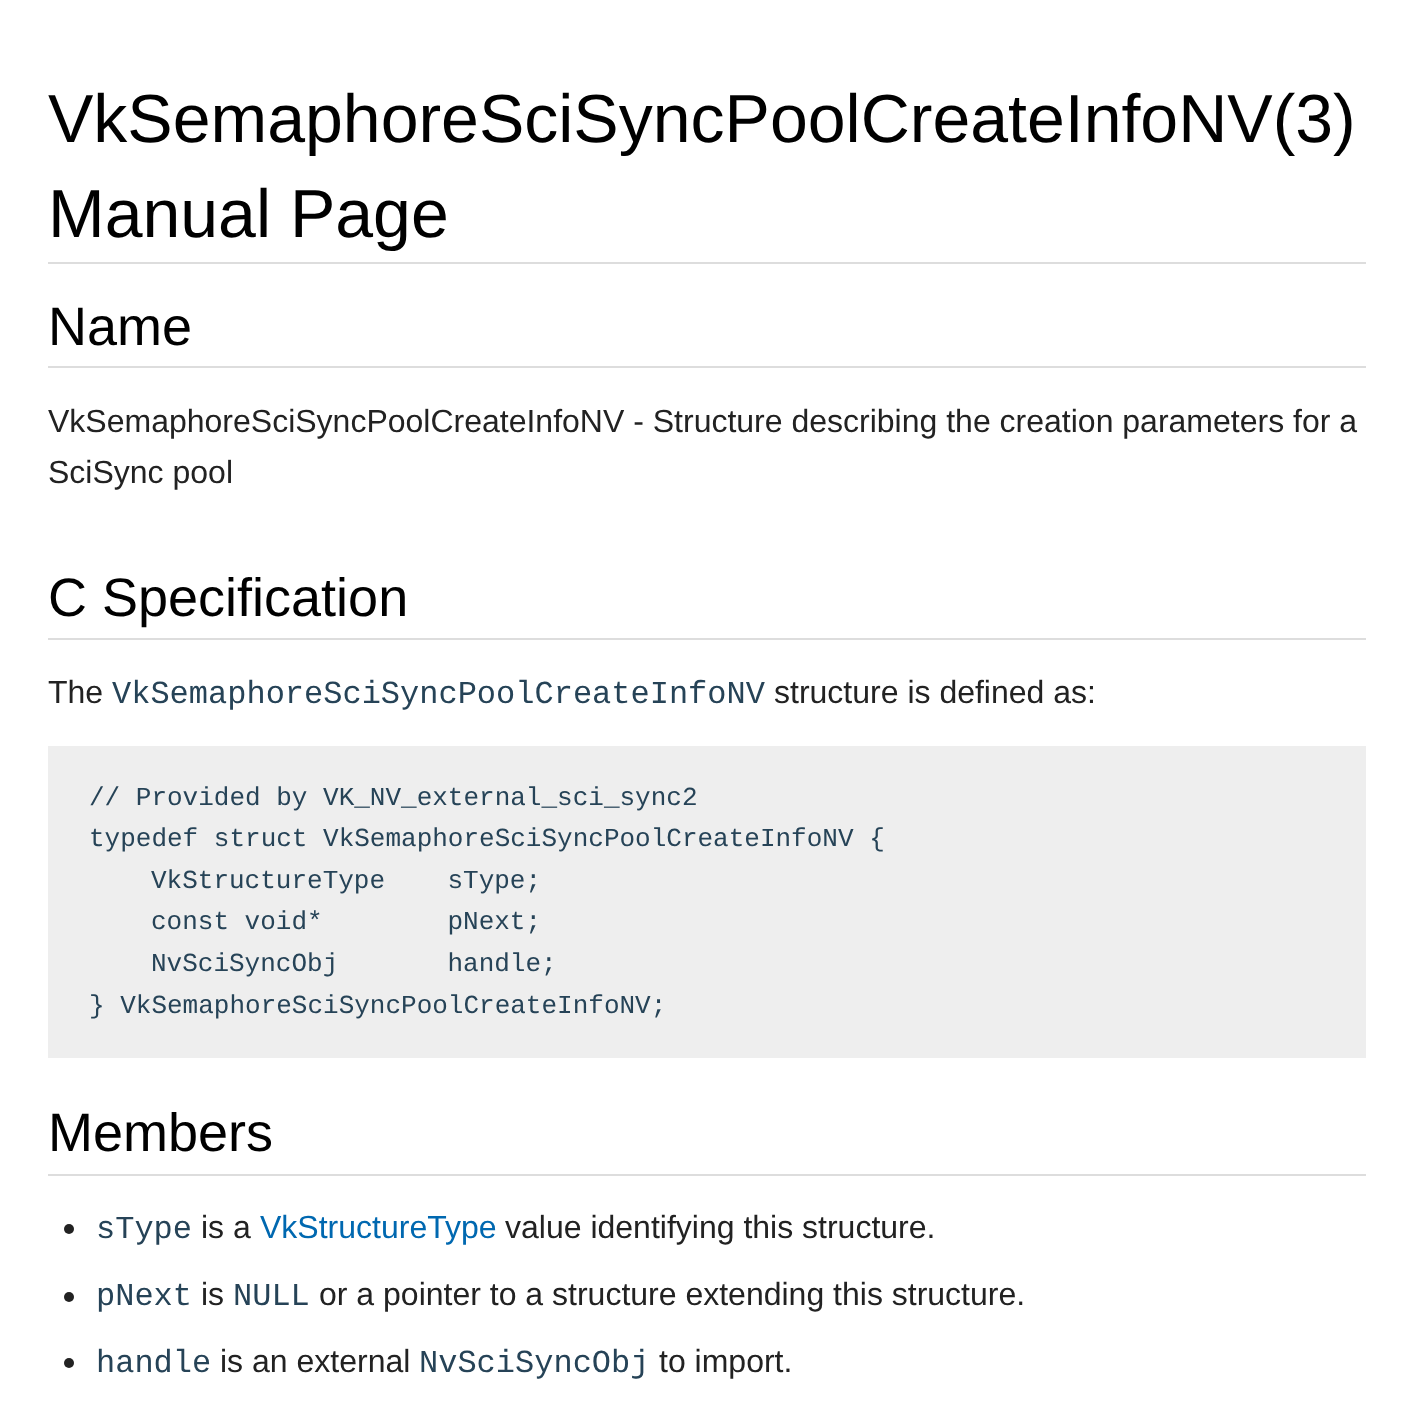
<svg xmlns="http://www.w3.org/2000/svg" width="1413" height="1411">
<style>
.a{font:68px Liberation Sans;fill:#000}
.b{font:54px Liberation Sans;fill:#000}
.c{font:32px Liberation Sans;fill:#222}
.d{font:32px Liberation Mono;fill:#264357}
.e{font:26px Liberation Mono;fill:#264357}
.f{font:32px Liberation Sans;fill:#0068b0}
</style>
<rect width="100%" height="100%" fill="#fff"/>
<path fill="#ddd" d="M48 262h1318v2H48z"/>
<path fill="#ddd" d="M48 366h1318v2H48z"/>
<path fill="#ddd" d="M48 638h1318v2H48z"/>
<path fill="#eee" d="M48 746h1318v312H48z"/>
<path fill="#ddd" d="M48 1174h1318v2H48z"/>
<circle fill="#222" cx="69" cy="1229" r="5"/>
<circle fill="#222" cx="69" cy="1297" r="5"/>
<circle fill="#222" cx="69" cy="1363" r="5"/>
<text class="a" x="48" y="142">VkSemaphoreSciSyncPoolCreateInfoNV(3)</text>
<text class="a" x="48" y="237">Manual Page</text>
<text class="b" x="48" y="345">Name</text>
<text class="c" x="48" y="432">VkSemaphoreSciSyncPoolCreateInfoNV - Structure describing the creation parameters for a</text>
<text class="c" x="48" y="483">SciSync pool</text>
<text class="b" x="48" y="616">C Specification</text>
<text class="c" x="48" y="703">The</text>
<text class="d" x="112" y="703">VkSemaphoreSciSyncPoolCreateInfoNV</text>
<text class="c" x="774" y="703">structure is defined as:</text>
<text class="e" x="89" y="805">// Provided by VK_NV_external_sci_sync2</text>
<text class="e" x="89" y="846">typedef struct VkSemaphoreSciSyncPoolCreateInfoNV {</text>
<text class="e" xml:space="preserve" x="151" y="888">VkStructureType    sType;</text>
<text class="e" xml:space="preserve" x="151" y="929">const void*        pNext;</text>
<text class="e" xml:space="preserve" x="151" y="971">NvSciSyncObj       handle;</text>
<text class="e" x="89" y="1013">} VkSemaphoreSciSyncPoolCreateInfoNV;</text>
<text class="b" x="48" y="1151">Members</text>
<text class="d" x="96" y="1238">sType</text>
<text class="c" x="201" y="1238">is a</text>
<text class="f" x="260" y="1238">VkStructureType</text>
<text class="c" x="505" y="1238">value identifying this structure.</text>
<text class="d" x="96" y="1305">pNext</text>
<text class="c" x="201" y="1305">is</text>
<text class="d" x="233" y="1305">NULL</text>
<text class="c" x="319" y="1305">or a pointer to a structure extending this structure.</text>
<text class="d" x="96" y="1372">handle</text>
<text class="c" x="220" y="1372">is an external</text>
<text class="d" x="419" y="1372">NvSciSyncObj</text>
<text class="c" x="659" y="1372">to import.</text>
</svg>
